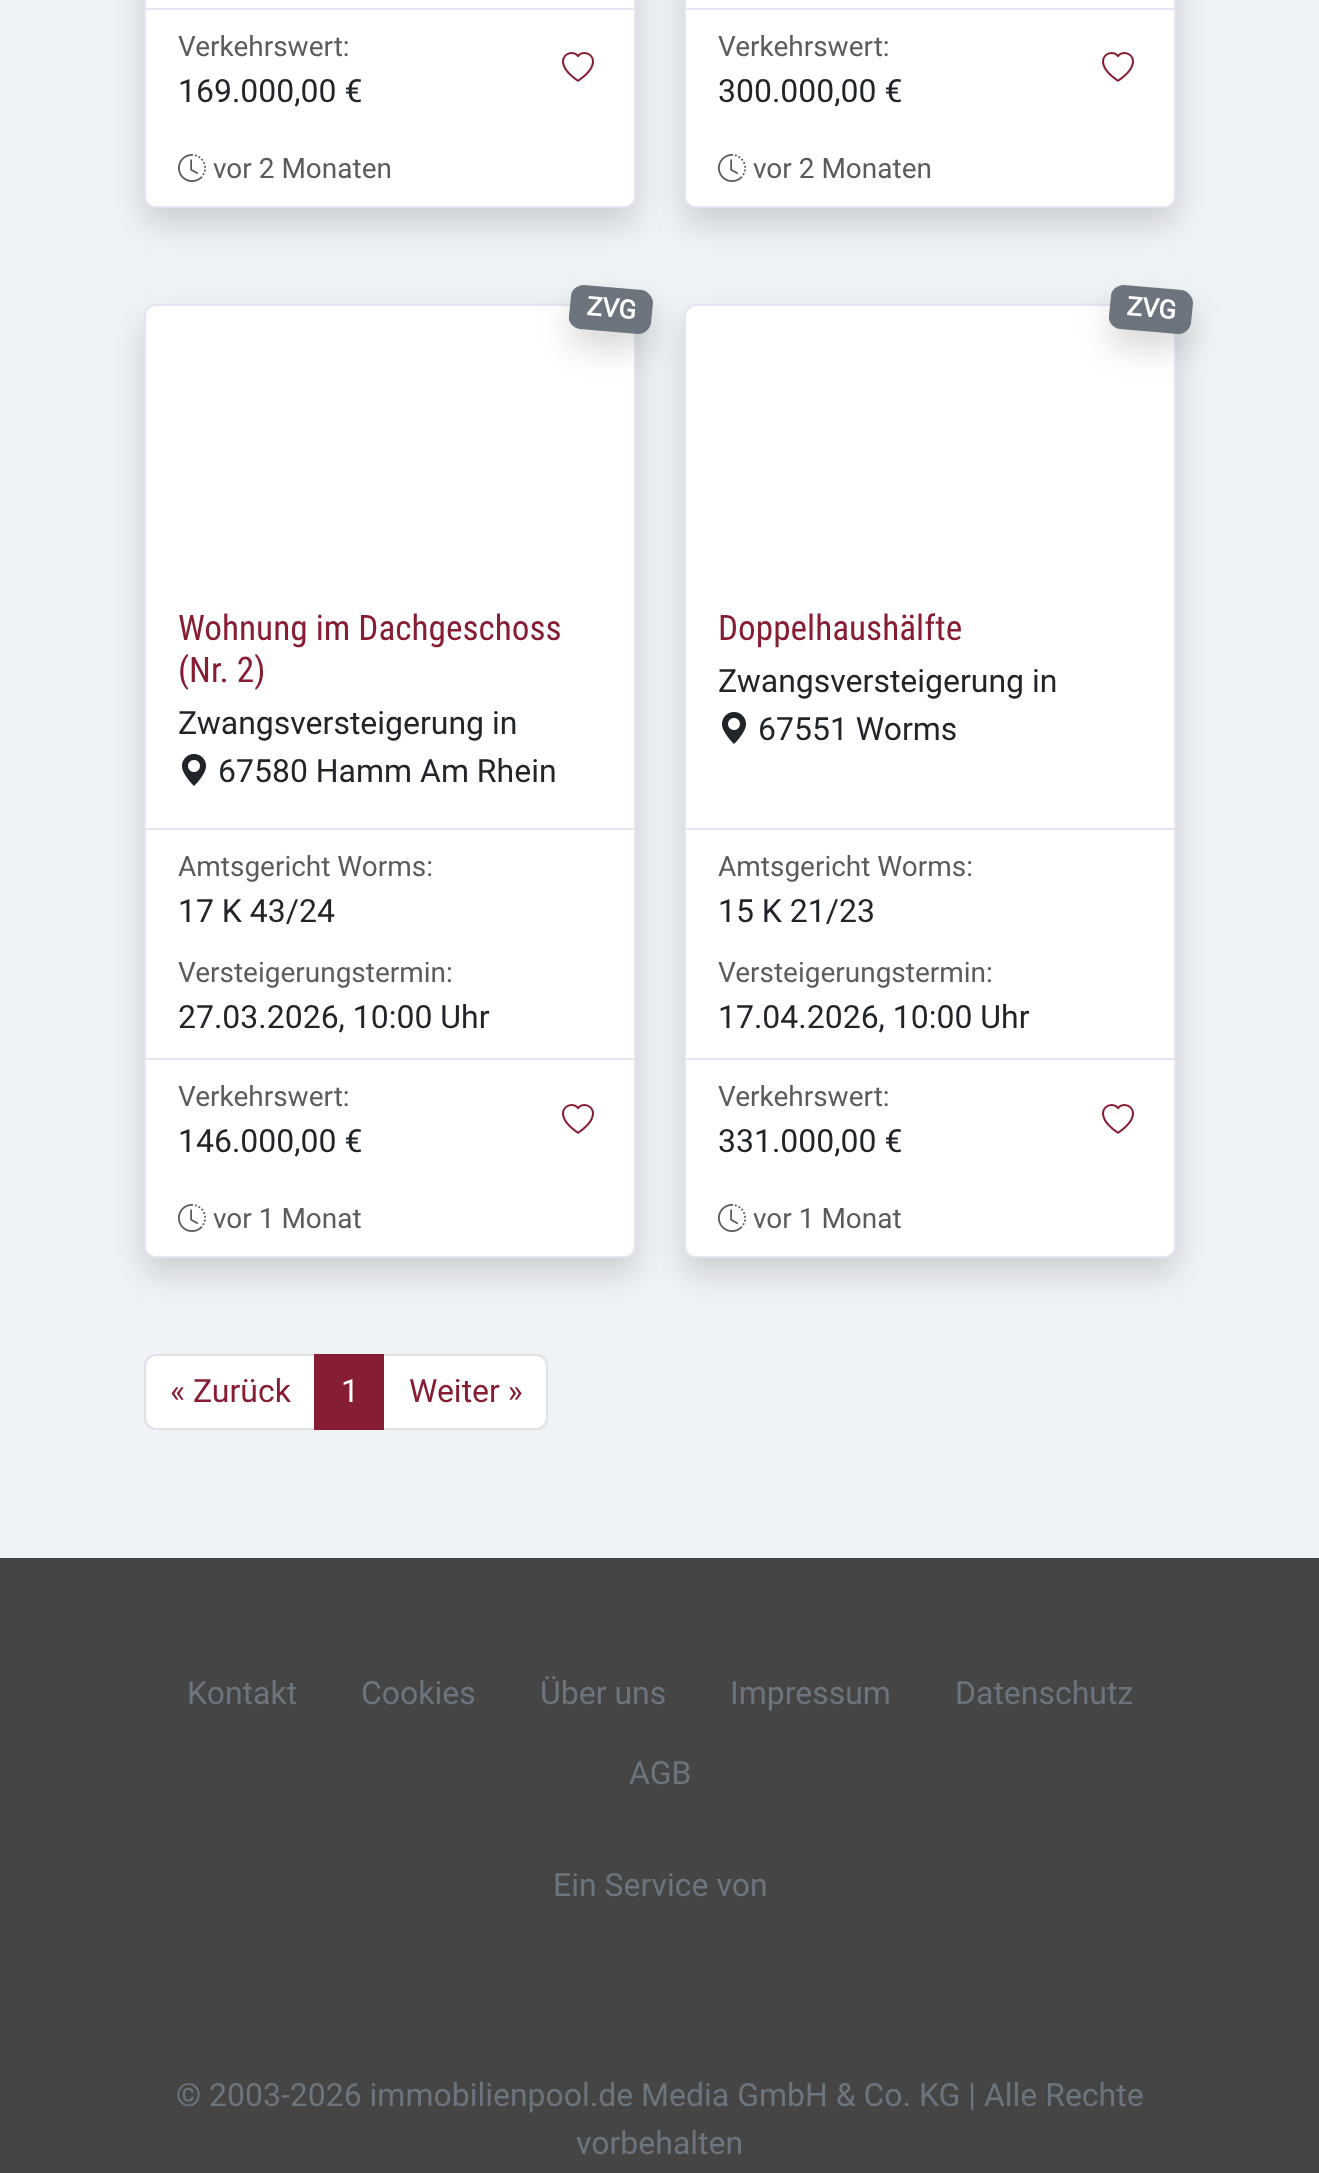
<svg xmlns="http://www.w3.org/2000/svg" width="1319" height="2173">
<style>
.a{font:28px Roboto;fill:#595c5f}
.b{font:32px Roboto;fill:#212529}
.c{font:bold 26px Roboto;fill:#fff}
.d{font:35.25px Roboto Condensed;fill:#871d33}
.e{font:32px Roboto;fill:#871d33}
.f{font:32px Roboto;fill:#fff}
.g{font:32px Roboto;fill:#6c757d}
</style>
<rect width="100%" height="100%" fill="#454545"/>
<path fill="#f0f3f6" d="M0 0h1319v1558H0z"/>
<rect fill="#00000026" filter="blur(16px)" x="144" y="-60" width="492" height="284" rx="12"/>
<rect fill="#fff" stroke="#e3e6f0" stroke-width="2" x="145" y="-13" width="490" height="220" rx="11"/>
<path fill="#e3e6f0" d="M146 8h488v2H146z"/>
<path fill="#fff" d="M146 10h488v186c0 5.5-4.5 10-10 10h-468c-5.5 0-10-4.5-10-10z"/>
<image href="1.png" x="562" y="52" width="32" height="30"/>
<image href="2.png" x="178" y="154" width="28" height="28"/>
<rect fill="#00000026" filter="blur(16px)" x="684" y="-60" width="492" height="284" rx="12"/>
<rect fill="#fff" stroke="#e3e6f0" stroke-width="2" x="685" y="-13" width="490" height="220" rx="11"/>
<path fill="#e3e6f0" d="M686 8h488v2H686z"/>
<path fill="#fff" d="M686 10h488v186c0 5.5-4.5 10-10 10h-468c-5.5 0-10-4.5-10-10z"/>
<image href="1.png" x="1102" y="52" width="32" height="30"/>
<image href="2.png" x="718" y="154" width="28" height="28"/>
<rect fill="#00000026" filter="blur(16px)" x="144" y="320" width="492" height="954" rx="12"/>
<rect fill="#fff" stroke="#e3e6f0" stroke-width="2" x="145" y="305" width="490" height="952" rx="11"/>
<rect fill="#00000026" filter="blur(16px)" x="570" y="304" width="82" height="44" rx="12"/>
<path fill="#6c757d" d="M584 285l58 5c6 1 11 7 11 13l-2 20c-1 6-6 11-13 11l-58-5c-7-1-12-7-11-13l2-20c0-6 6-11 13-11z"/>
<image href="3.png" x="181" y="754" width="26" height="32"/>
<path fill="#e3e6f0" d="M146 828h488v2H146z"/>
<path fill="#e3e6f0" d="M146 1058h488v2H146z"/>
<path fill="#fff" d="M146 1060h488v186c0 5.5-4.5 10-10 10h-468c-5.5 0-10-4.5-10-10z"/>
<image href="1.png" x="562" y="1104" width="32" height="30"/>
<image href="2.png" x="178" y="1204" width="28" height="28"/>
<rect fill="#00000026" filter="blur(16px)" x="684" y="320" width="492" height="954" rx="12"/>
<rect fill="#fff" stroke="#e3e6f0" stroke-width="2" x="685" y="305" width="490" height="952" rx="11"/>
<rect fill="#00000026" filter="blur(16px)" x="1110" y="304" width="82" height="44" rx="12"/>
<path fill="#6c757d" d="M1124 285l58 5c6 1 11 7 11 13l-2 20c-1 6-6 11-13 11l-58-5c-7-1-12-7-11-13l2-20c0-6 6-11 13-11z"/>
<image href="3.png" x="721" y="712" width="26" height="32"/>
<path fill="#e3e6f0" d="M686 828h488v2H686z"/>
<path fill="#e3e6f0" d="M686 1058h488v2H686z"/>
<path fill="#fff" d="M686 1060h488v186c0 5.5-4.5 10-10 10h-468c-5.5 0-10-4.5-10-10z"/>
<image href="1.png" x="1102" y="1104" width="32" height="30"/>
<image href="2.png" x="718" y="1204" width="28" height="28"/>
<path fill="#fff" stroke="#dee2e6" stroke-width="2" d="M156 1355h159v74h-159c-6 0-11-5-11-11v-52c0-6 5-11 11-11z"/>
<path fill="#fff" stroke="#dee2e6" stroke-width="2" d="M383 1355h153c6 0 11 5 11 11v52c0 6-5 11-11 11h-153z"/>
<path fill="#871d33" d="M314 1354h70v76H314z"/>
<text class="a" x="178" y="56">Verkehrswert:</text>
<text class="b" x="178" y="102">169.000,00 €</text>
<text class="a" x="213" y="178">vor 2 Monaten</text>
<text class="a" x="718" y="56">Verkehrswert:</text>
<text class="b" x="718" y="102">300.000,00 €</text>
<text class="a" x="753" y="178">vor 2 Monaten</text>
<text class="c" x="586" y="315" transform="rotate(5 586 315)">ZVG</text>
<text class="d" x="178" y="640">Wohnung im Dachgeschoss</text>
<text class="d" x="178" y="682">(Nr. 2)</text>
<text class="b" x="178" y="734">Zwangsversteigerung in</text>
<text class="b" x="218" y="782">67580 Hamm Am Rhein</text>
<text class="a" x="178" y="876">Amtsgericht Worms:</text>
<text class="b" x="178" y="922">17 K 43/24</text>
<text class="a" x="178" y="982">Versteigerungstermin:</text>
<text class="b" x="178" y="1028">27.03.2026, 10:00 Uhr</text>
<text class="a" x="178" y="1106">Verkehrswert:</text>
<text class="b" x="178" y="1152">146.000,00 €</text>
<text class="a" x="213" y="1228">vor 1 Monat</text>
<text class="c" x="1126" y="315" transform="rotate(5 1126 315)">ZVG</text>
<text class="d" x="718" y="640">Doppelhaushälfte</text>
<text class="b" x="718" y="692">Zwangsversteigerung in</text>
<text class="b" x="758" y="740">67551 Worms</text>
<text class="a" x="718" y="876">Amtsgericht Worms:</text>
<text class="b" x="718" y="922">15 K 21/23</text>
<text class="a" x="718" y="982">Versteigerungstermin:</text>
<text class="b" x="718" y="1028">17.04.2026, 10:00 Uhr</text>
<text class="a" x="718" y="1106">Verkehrswert:</text>
<text class="b" x="718" y="1152">331.000,00 €</text>
<text class="a" x="753" y="1228">vor 1 Monat</text>
<text class="e" x="170" y="1402">« Zurück</text>
<text class="f" x="341" y="1402">1</text>
<text class="e" x="409" y="1402">Weiter »</text>
<text class="g" x="187" y="1704">Kontakt</text>
<text class="g" x="361" y="1704">Cookies</text>
<text class="g" x="540" y="1704">Über uns</text>
<text class="g" x="730" y="1704">Impressum</text>
<text class="g" x="955" y="1704">Datenschutz</text>
<text class="g" x="629" y="1784">AGB</text>
<text class="g" x="553" y="1896">Ein Service von</text>
<text class="g" x="176" y="2106">© 2003-2026 immobilienpool.de Media GmbH &amp; Co. KG | Alle Rechte</text>
<text class="g" x="576" y="2154">vorbehalten</text>
</svg>
